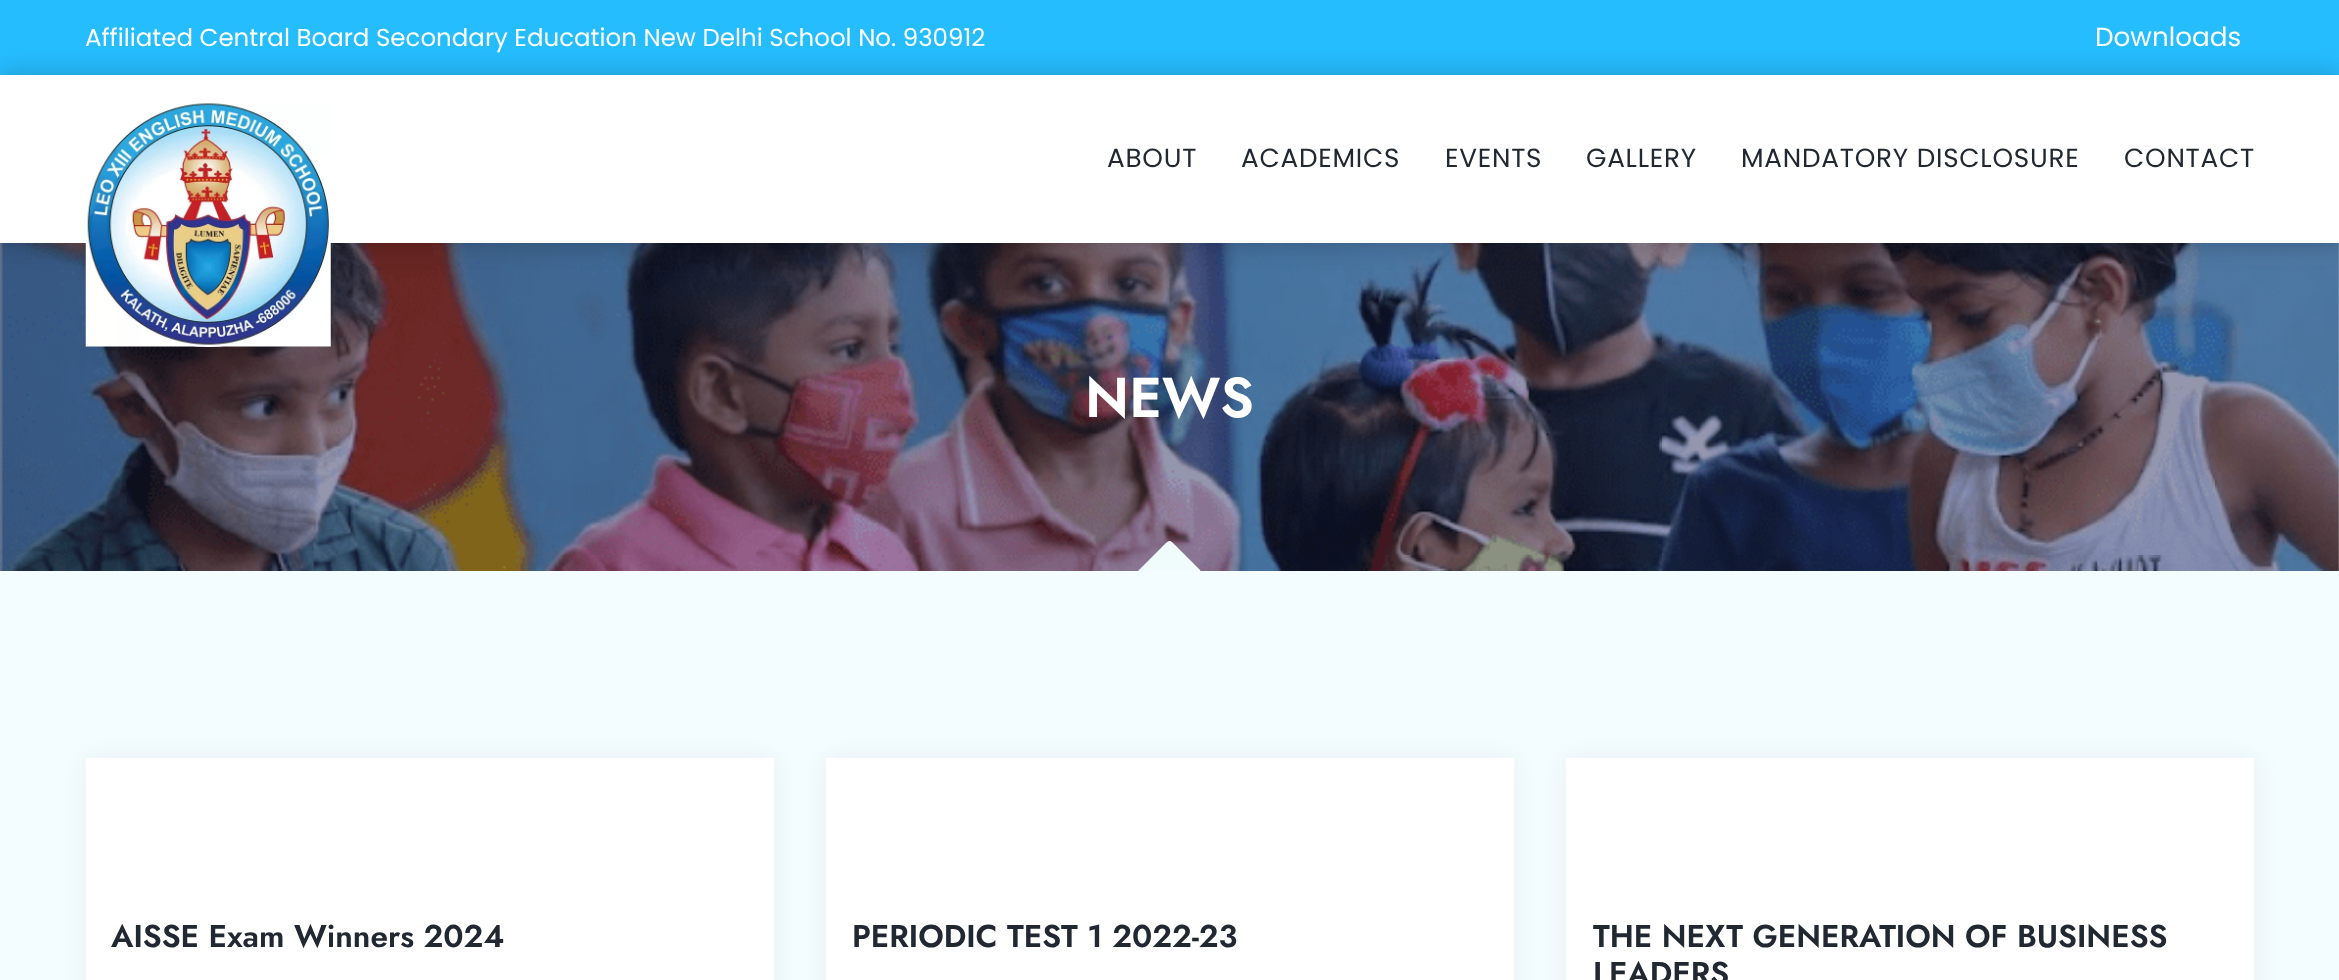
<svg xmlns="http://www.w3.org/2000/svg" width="2339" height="980">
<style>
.a{font:24.5px Poppins;fill:#fff}
.b{font:26.25px Poppins;fill:#fff}
.c{font:26.25px Poppins;letter-spacing:0.75px;fill:#212832}
.d{font:600 56px Jost;fill:#fff}
.e{font:600 31.5px Jost;fill:#212832}
</style>
<defs>
<clipPath id="clip1"><path d="M0 224h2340v347H0z"/></clipPath>
</defs>
<rect width="100%" height="100%" fill="#f3fcff"/>
<path fill="#26bdff" d="M0 0h2339v75H0z"/>
<image href="2.png" x="0" y="243" width="2339" height="328"/>
<rect fill="#00000024" filter="blur(6px)" x="82" y="109" width="252" height="252" rx="126"/>
<circle fill="#fff" cx="208.5" cy="224.5" r="122.5"/>
<path fill="#00000038" filter="blur(13px)" d="M0 75h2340v168H0z"/>
<path fill="#fff" d="M0 75h2339v168H0z"/>
<image href="1.png" x="85" y="103" width="246" height="244"/>
<g clip-path="url(#clip1)">
<path fill="#f0fbfc" d="M1200 570l1 2c3 7-11 5-13 5h-47c-3 0-5-4-2-7l23-23c8-8 7-8 15 0z"/>
</g>
<path fill="#cccccc40" filter="blur(13px)" d="M86 758h688v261H86z"/>
<path fill="#fff" d="M86 758h688v222H86z"/>
<path fill="#cccccc40" filter="blur(13px)" d="M826 758h688v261H826z"/>
<path fill="#fff" d="M826 758h688v222H826z"/>
<path fill="#cccccc40" filter="blur(13px)" d="M1566 758h688v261H1566z"/>
<path fill="#fff" d="M1566 758h688v222H1566z"/>
<text class="a" x="85" y="46">Affiliated Central Board Secondary Education New Delhi School No. 930912</text>
<text class="b" x="2095" y="46">Downloads</text>
<text class="c" x="1107" y="167">ABOUT</text>
<text class="c" x="1241" y="167">ACADEMICS</text>
<text class="c" x="1445" y="167">EVENTS</text>
<text class="c" x="1586" y="167">GALLERY</text>
<text class="c" x="1741" y="167">MANDATORY DISCLOSURE</text>
<text class="c" x="2124" y="167">CONTACT</text>
<text class="d" x="1085" y="417">NEWS</text>
<text class="e" x="111" y="947">AISSE Exam Winners 2024</text>
<text class="e" x="852" y="947">PERIODIC TEST 1 2022-23</text>
<text class="e" x="1593" y="947">THE NEXT GENERATION OF BUSINESS</text>
<text class="e" x="1593" y="984">LEADERS</text>
</svg>
